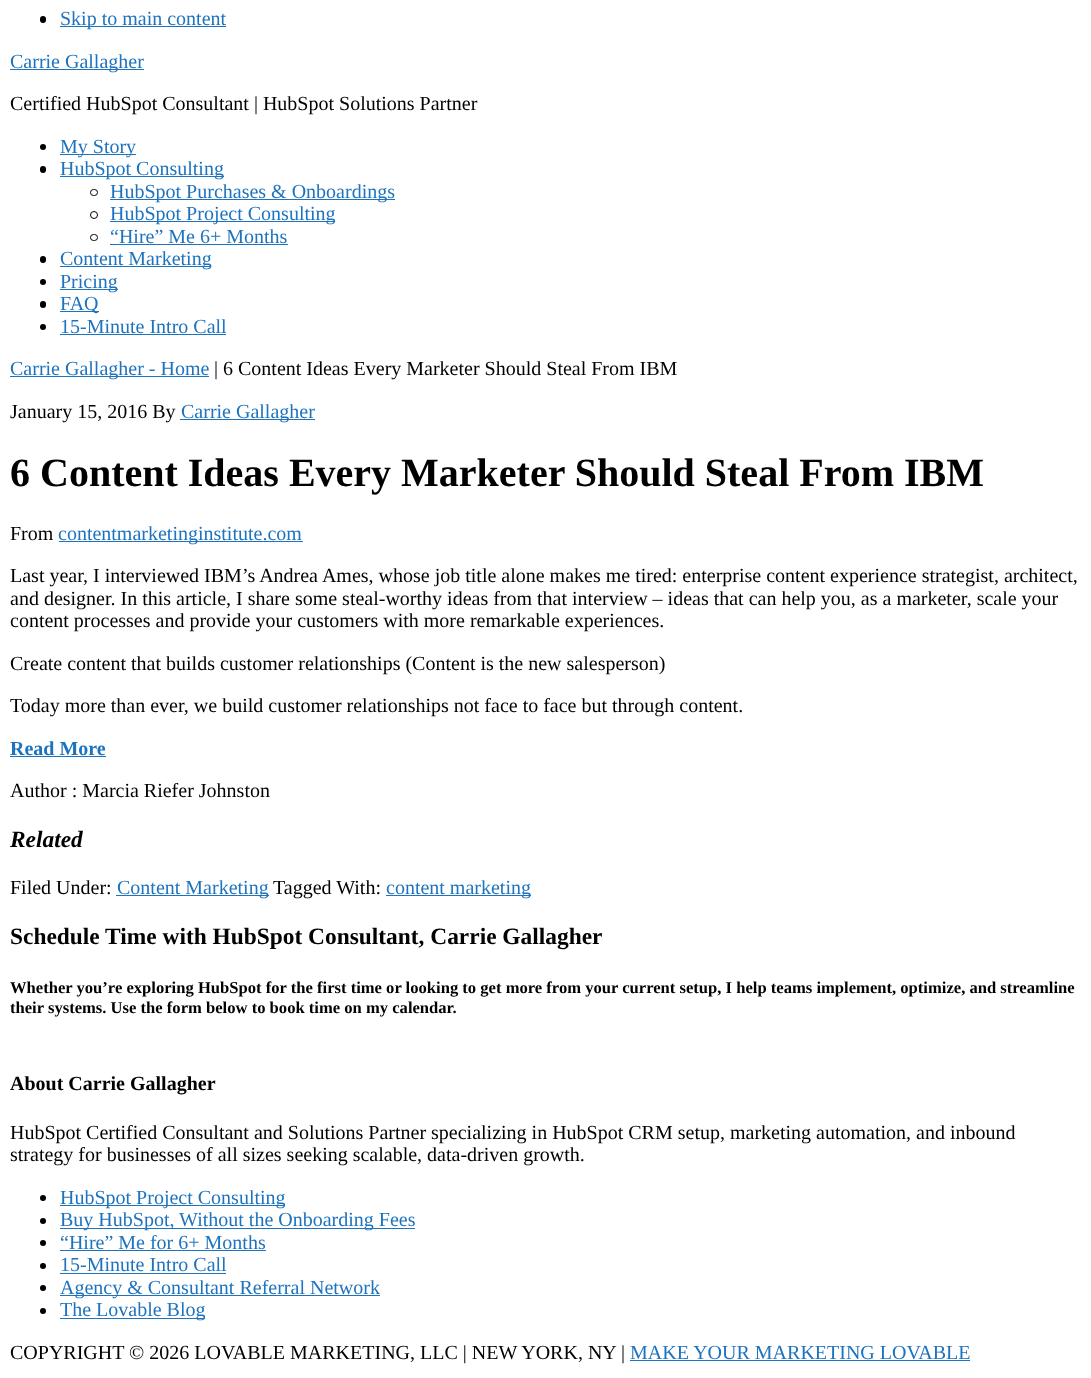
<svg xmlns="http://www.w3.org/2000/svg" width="1091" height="1378">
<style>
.a{font:20px Liberation Serif;fill:#1e73be}
.b{font:20px Liberation Serif;fill:#000}
.c{font:bold 40px Liberation Serif;fill:#000}
.d{font:bold 20px Liberation Serif;fill:#1e73be}
.e{font:italic bold 23.4px Liberation Serif;fill:#000}
.f{font:bold 23.4px Liberation Serif;fill:#000}
.g{font:bold 16.6px Liberation Serif;fill:#000}
.h{font:bold 20px Liberation Serif;fill:#000}
</style>
<rect width="100%" height="100%" fill="#fff"/>
<rect fill="#000" x="40" y="16" width="6" height="7" rx="3"/>
<path fill="#1e73be" d="M60 26h166v1H60z"/>
<path fill="#1e73be" d="M10 69h134v1H10z"/>
<circle fill="#000" cx="43" cy="147" r="3"/>
<path fill="#1e73be" d="M60 154h76v1H60z"/>
<rect fill="#000" x="40" y="166" width="6" height="7" rx="3"/>
<path fill="#1e73be" d="M60 176h164v1H60z"/>
<rect fill="none" stroke="#000" x="90.5" y="189.5" width="7" height="6" rx="3"/>
<path fill="#1e73be" d="M110 199h285v1H110z"/>
<circle fill="none" stroke="#000" cx="94" cy="215" r="3.5"/>
<path fill="#1e73be" d="M110 221h225v1H110z"/>
<rect fill="none" stroke="#000" x="90.5" y="234.5" width="7" height="6" rx="3"/>
<path fill="#1e73be" d="M110 244h178v1H110z"/>
<rect fill="#000" x="40" y="256" width="6" height="7" rx="3"/>
<path fill="#1e73be" d="M60 266h151v1H60z"/>
<circle fill="#000" cx="43" cy="282" r="3"/>
<path fill="#1e73be" d="M60 289h58v1H60z"/>
<rect fill="#000" x="40" y="301" width="6" height="7" rx="3"/>
<path fill="#1e73be" d="M60 311h39v1H60z"/>
<circle fill="#000" cx="43" cy="327" r="3"/>
<path fill="#1e73be" d="M60 334h166v1H60z"/>
<path fill="#1e73be" d="M10 376h199v1H10z"/>
<path fill="#1e73be" d="M180 419h135v1H180z"/>
<path fill="#1e73be" d="M59 541h244v1H59z"/>
<path fill="#1e73be" d="M10 756h96v1H10z"/>
<path fill="#1e73be" d="M116 895h153v1H116z"/>
<path fill="#1e73be" d="M386 895h145v1H386z"/>
<circle fill="#000" cx="43" cy="1198" r="3"/>
<path fill="#1e73be" d="M60 1205h225v1H60z"/>
<circle fill="#000" cx="43" cy="1221" r="3"/>
<path fill="#1e73be" d="M60 1228h355v1H60z"/>
<circle fill="#000" cx="43" cy="1243" r="3"/>
<path fill="#1e73be" d="M60 1250h206v1H60z"/>
<circle fill="#000" cx="43" cy="1266" r="3"/>
<path fill="#1e73be" d="M60 1273h166v1H60z"/>
<circle fill="#000" cx="43" cy="1288" r="3"/>
<path fill="#1e73be" d="M60 1295h320v1H60z"/>
<circle fill="#000" cx="43" cy="1311" r="3"/>
<path fill="#1e73be" d="M60 1318h145v1H60z"/>
<path fill="#1e73be" d="M630 1360h340v1H630z"/>
<text class="a" x="60" y="25">Skip to main content</text>
<text class="a" x="10" y="68">Carrie Gallagher</text>
<text class="b" x="10" y="110">Certified HubSpot Consultant | HubSpot Solutions Partner</text>
<text class="a" x="60" y="153">My Story</text>
<text class="a" x="60" y="175">HubSpot Consulting</text>
<text class="a" x="110" y="198">HubSpot Purchases &amp; Onboardings</text>
<text class="a" x="110" y="220">HubSpot Project Consulting</text>
<text class="a" x="110" y="243">“Hire” Me 6+ Months</text>
<text class="a" x="60" y="265">Content Marketing</text>
<text class="a" x="60" y="288">Pricing</text>
<text class="a" x="60" y="310">FAQ</text>
<text class="a" x="60" y="333">15-Minute Intro Call</text>
<text class="a" x="10" y="375">Carrie Gallagher - Home</text>
<text class="b" x="214" y="375">| 6 Content Ideas Every Marketer Should Steal From IBM</text>
<text class="b" x="10" y="418">January 15, 2016 By</text>
<text class="a" x="181" y="418">Carrie Gallagher</text>
<text class="c" x="10" y="486">6 Content Ideas Every Marketer Should Steal From IBM</text>
<text class="b" x="10" y="540">From</text>
<text class="a" x="58" y="540">contentmarketinginstitute.com</text>
<text class="b" x="10" y="582">Last year, I interviewed IBM’s Andrea Ames, whose job title alone makes me tired: enterprise content experience strategist, architect,</text>
<text class="b" x="10" y="605">and designer. In this article, I share some steal-worthy ideas from that interview – ideas that can help you, as a marketer, scale your</text>
<text class="b" x="10" y="627">content processes and provide your customers with more remarkable experiences.</text>
<text class="b" x="10" y="670">Create content that builds customer relationships (Content is the new salesperson)</text>
<text class="b" x="10" y="712">Today more than ever, we build customer relationships not face to face but through content.</text>
<text class="d" x="10" y="755">Read More</text>
<text class="b" x="10" y="797">Author : Marcia Riefer Johnston</text>
<text class="e" x="10" y="847">Related</text>
<text class="b" x="10" y="894">Filed Under:</text>
<text class="a" x="117" y="894">Content Marketing</text>
<text class="b" x="273" y="894">Tagged With:</text>
<text class="a" x="386" y="894">content marketing</text>
<text class="f" x="10" y="944">Schedule Time with HubSpot Consultant, Carrie Gallagher</text>
<text class="g" x="10" y="993">Whether you’re exploring HubSpot for the first time or looking to get more from your current setup, I help teams implement, optimize, and streamline</text>
<text class="g" x="10" y="1013">their systems. Use the form below to book time on my calendar.</text>
<text class="h" x="10" y="1090">About Carrie Gallagher</text>
<text class="b" x="10" y="1139">HubSpot Certified Consultant and Solutions Partner specializing in HubSpot CRM setup, marketing automation, and inbound</text>
<text class="b" x="10" y="1161">strategy for businesses of all sizes seeking scalable, data-driven growth.</text>
<text class="a" x="60" y="1204">HubSpot Project Consulting</text>
<text class="a" x="60" y="1226">Buy HubSpot, Without the Onboarding Fees</text>
<text class="a" x="60" y="1249">“Hire” Me for 6+ Months</text>
<text class="a" x="60" y="1271">15-Minute Intro Call</text>
<text class="a" x="60" y="1294">Agency &amp; Consultant Referral Network</text>
<text class="a" x="60" y="1316">The Lovable Blog</text>
<text class="b" x="10" y="1359">COPYRIGHT © 2026 LOVABLE MARKETING, LLC | NEW YORK, NY |</text>
<text class="a" x="630" y="1359">MAKE YOUR MARKETING LOVABLE</text>
</svg>
